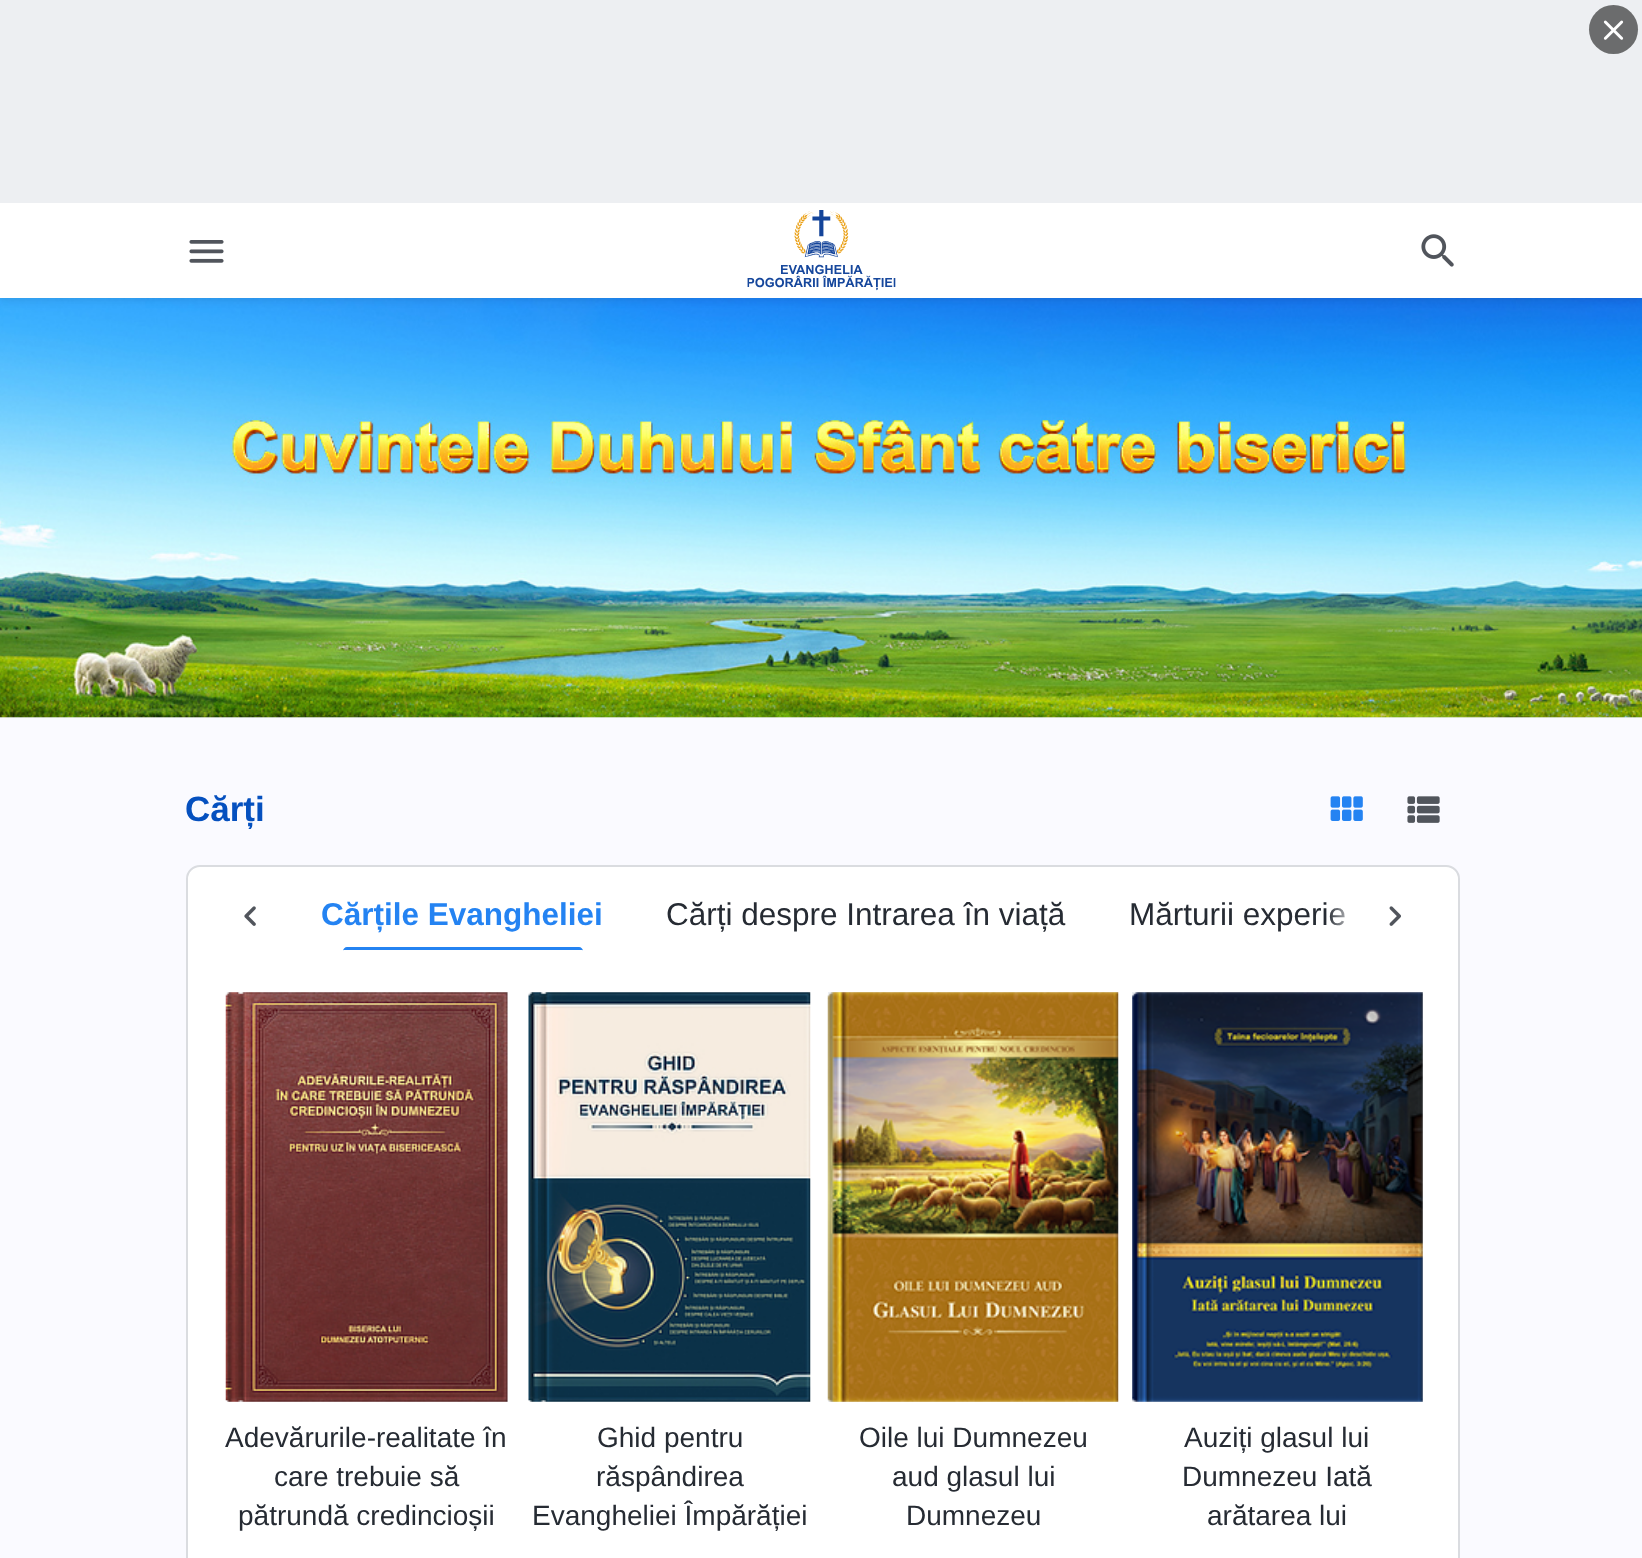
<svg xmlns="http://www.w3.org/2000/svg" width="1642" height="1558">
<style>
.a{font:bold 35px Liberation Sans;fill:#0550bf}
.b{font:bold 31.5px Liberation Sans;fill:#2483f2}
.c{font:31.5px Liberation Sans;fill:#262b33}
.d{font:28px Liberation Sans;fill:#262b33}
</style>
<defs>
<linearGradient id="g1" gradientUnits="userSpaceOnUse" x1="1359" y1="915" x2="1327" y2="915"><stop offset="0" stop-color="#fff"/><stop offset="1" stop-color="#fff" stop-opacity="0"/></linearGradient>
</defs>
<rect width="100%" height="100%" fill="#fafaff"/>
<path fill="#edeff2" d="M0 717h1642v1H0z"/>
<image href="5.png" x="0" y="298" width="1642" height="420"/>
<path fill="#0000001c" filter="blur(5px)" d="M0 205h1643v94H0z"/>
<path fill="#edeff2" d="M0 0h1642v203H0z"/>
<circle fill="#6b6c6d" cx="1613.5" cy="29.5" r="24.5"/>
<image href="1.png" x="1603" y="20" width="21" height="20"/>
<path fill="#fff" d="M0 203h1642v95H0z"/>
<image href="2.png" x="189" y="240" width="35" height="23"/>
<image href="3.png" x="747" y="210" width="149" height="81"/>
<image href="4.png" x="1421" y="234" width="33" height="33"/>
<image href="6.png" x="1330" y="796" width="33" height="25"/>
<image href="7.png" x="1407" y="796" width="33" height="27"/>
<rect fill="#fff" stroke="#dadce0" stroke-width="2" x="187" y="866" width="1272" height="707" rx="13"/>
<image href="8.png" x="244" y="906" width="12" height="20"/>
<path fill="#2483f2" d="M347 947h232c2 0 4 2 4 4v-1h-240v1c0-2 2-4 4-4z"/>
<image href="9.png" x="1389" y="906" width="12" height="20"/>
<path fill="#edeff2" d="M226 992h282v410H226z"/>
<image href="10.png" x="225" y="992" width="283" height="410"/>
<image href="11.png" x="528" y="992" width="283" height="410"/>
<path fill="#edeff2" d="M828 992h290v410H828z"/>
<image href="12.png" x="827" y="992" width="292" height="410"/>
<path fill="#edeff2" d="M1132 992h291v410H1132z"/>
<image href="13.png" x="1132" y="992" width="291" height="410"/>
<text class="a" x="185" y="821">Cărți</text>
<text class="b" x="321" y="925">Cărțile Evangheliei</text>
<text class="c" x="666" y="925">Cărți despre Intrarea în viață</text>
<text class="c" x="1129" y="925">Mărturii experie</text>
<path fill="url(#g1)" d="M1329 908h16v18H1329z"/>
<text class="d" x="225" y="1447">Adevărurile-realitate în</text>
<text class="d" x="274" y="1486">care trebuie să</text>
<text class="d" x="238" y="1525">pătrundă credincioșii</text>
<text class="d" x="597" y="1447">Ghid pentru</text>
<text class="d" x="596" y="1486">răspândirea</text>
<text class="d" x="532" y="1525">Evangheliei Împărăției</text>
<text class="d" x="859" y="1447">Oile lui Dumnezeu</text>
<text class="d" x="892" y="1486">aud glasul lui</text>
<text class="d" x="906" y="1525">Dumnezeu</text>
<text class="d" x="1184" y="1447">Auziți glasul lui</text>
<text class="d" x="1182" y="1486">Dumnezeu Iată</text>
<text class="d" x="1207" y="1525">arătarea lui</text>
</svg>
